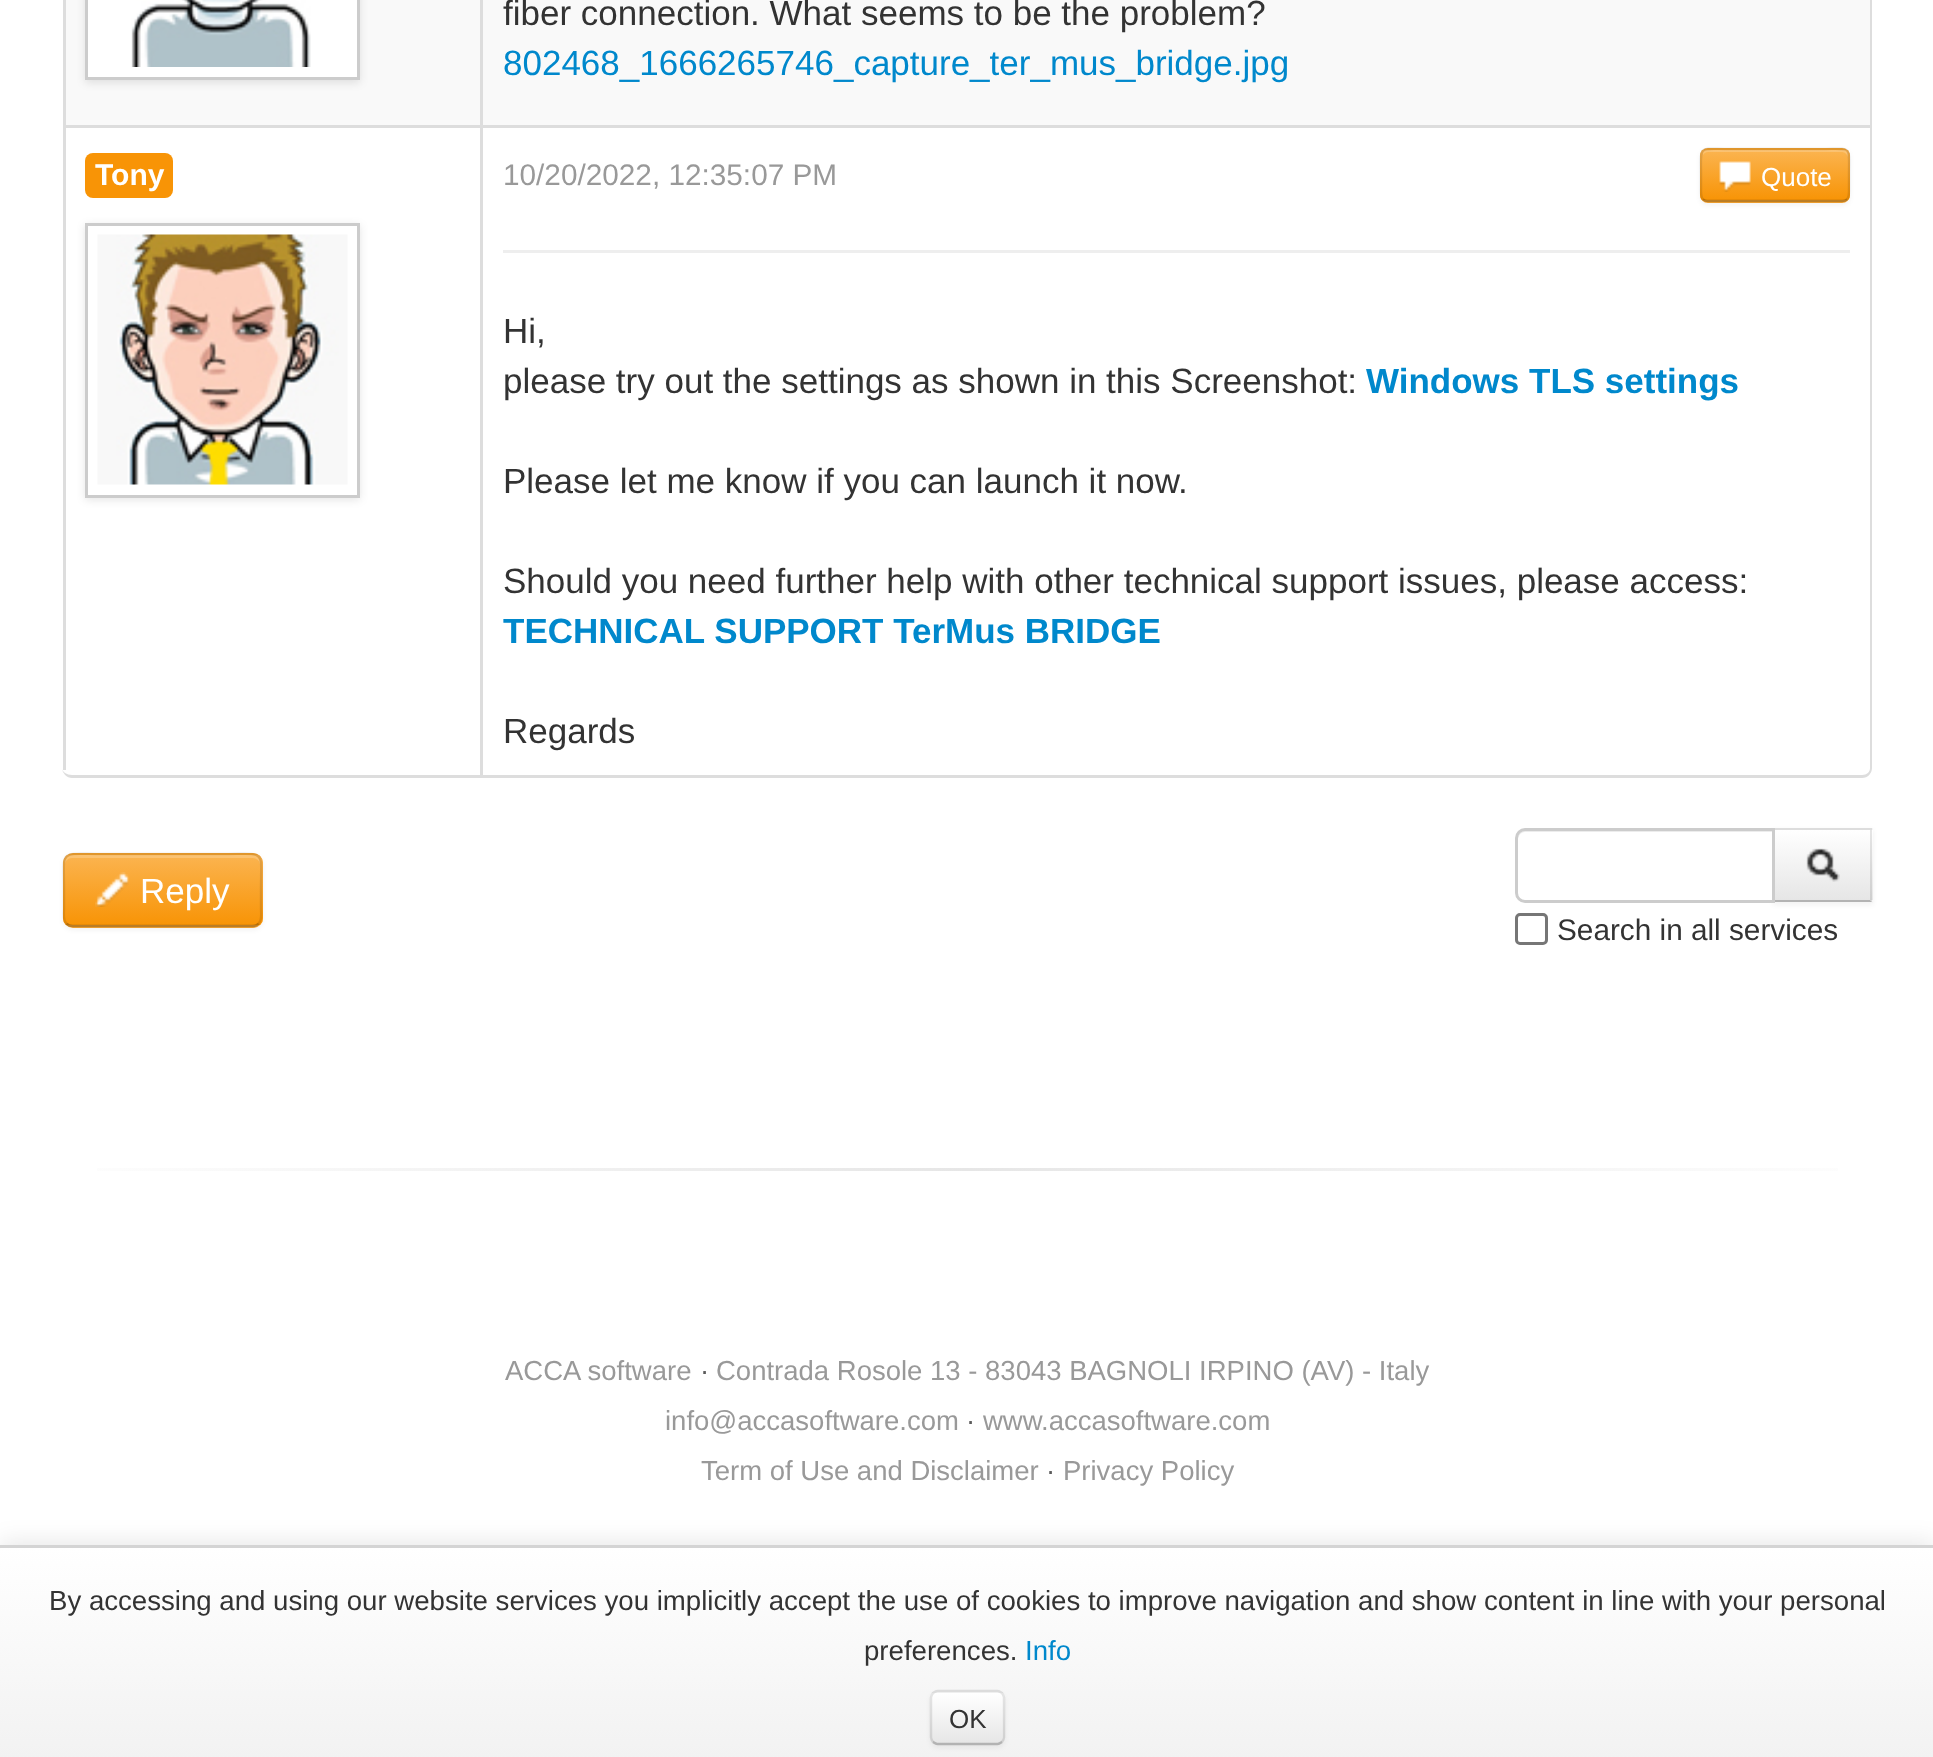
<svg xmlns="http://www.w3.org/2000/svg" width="1933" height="1757">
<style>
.a{font:35px Liberation Sans;fill:#333}
.b{font:35px Liberation Sans;fill:#08c}
.c{font:bold 30px Liberation Sans;fill:#fff}
.d{font:29.75px Liberation Sans;fill:#999}
.e{font:26px Liberation Sans;fill:#fff}
.f{font:bold 35px Liberation Sans;fill:#08c}
.g{font:35px Liberation Sans;fill:#fff}
.h{font:29.75px Liberation Sans;fill:#333}
.i{font:27.5px Liberation Sans;fill:#999}
.j{font:27.5px Liberation Sans;fill:#5a5a5a}
.k{font:27.62px Liberation Sans;fill:#333}
.l{font:27.62px Liberation Sans;fill:#08c}
.m{font:26px Liberation Sans;fill:#333}
</style>
<defs>
<clipPath id="clip1"><rect x="1700" y="148" width="150" height="55" rx="8"/></clipPath>
<linearGradient id="g1" gradientUnits="userSpaceOnUse" x1="1775" y1="150" x2="1775" y2="200"><stop offset="0" stop-color="#fbb450"/><stop offset="1" stop-color="#f89406"/></linearGradient>
<clipPath id="clip2"><rect x="63" y="853" width="200" height="75" rx="10"/></clipPath>
<linearGradient id="g2" gradientUnits="userSpaceOnUse" x1="163" y1="855" x2="163" y2="925"><stop offset="0" stop-color="#fbb450"/><stop offset="1" stop-color="#f89406"/></linearGradient>
<linearGradient id="g3" gradientUnits="userSpaceOnUse" x1="1823" y1="830" x2="1823" y2="900"><stop offset="0" stop-color="#fff"/><stop offset="1" stop-color="#e6e6e6"/></linearGradient>
<linearGradient id="g4" gradientUnits="userSpaceOnUse" x1="0" y1="1169" x2="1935" y2="1169"><stop offset="0" stop-color="#fff"/><stop offset="0.5" stop-color="#e6e6e6"/><stop offset="1" stop-color="#fff"/></linearGradient>
<linearGradient id="g5" gradientUnits="userSpaceOnUse" x1="968" y1="1548" x2="968" y2="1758"><stop offset="0" stop-color="#fff"/><stop offset="1" stop-color="#f2f2f2"/></linearGradient>
<clipPath id="clip3"><rect x="930" y="1690" width="75" height="55" rx="8"/></clipPath>
<linearGradient id="g6" gradientUnits="userSpaceOnUse" x1="968" y1="1693" x2="968" y2="1743"><stop offset="0" stop-color="#fff"/><stop offset="1" stop-color="#e6e6e6"/></linearGradient>
</defs>
<rect width="100%" height="100%" fill="#fff"/>
<path fill="#ddd" fill-rule="evenodd" d="M72-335h1790c6 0 10 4 10 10v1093c0 5-4 10-10 10h-1790c-5 0-10-5-10-10v-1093c0-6 5-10 10-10zm0 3h1790c5 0 8 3 8 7v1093c0 4-3 7-8 7h-1790c-5 0-10-3-10-7v-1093c0-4 5-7 10-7z"/>
<path fill="#f9f9f9" d="M66 0h414v125H66z"/>
<path fill="#ddd" d="M63 0h3v125H63z"/>
<path fill="#0000001a" filter="blur(4px)" d="M85 -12h275v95H85z"/>
<path fill="#fff" stroke="#ccc" stroke-width="3" d="M86.5 -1.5h272v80H86.5z"/>
<image href="1.png" x="131" y="0" width="180" height="67"/>
<path fill="#f9f9f9" d="M483 0h1387v125H483z"/>
<path fill="#ddd" d="M480 0h3v125H480z"/>
<path fill="#ddd" d="M63 125h1807v3H63z"/>
<path fill="#ddd" d="M63 125h3v645H63z"/>
<rect fill="#f89406" x="85" y="153" width="88" height="45" rx="8"/>
<path fill="#0000001a" filter="blur(4px)" d="M85 225h275v275H85z"/>
<path fill="#fff" stroke="#ccc" stroke-width="3" d="M86.5 224.5h272v272H86.5z"/>
<image href="2.png" x="97" y="234" width="251" height="251"/>
<path fill="#ddd" d="M480 125h3v650H480z"/>
<rect fill="#0000000d" filter="blur(2.5px)" x="1700" y="150" width="150" height="55" rx="8"/>
<rect fill="#faa732" x="1700" y="148" width="150" height="55" rx="8"/>
<g clip-path="url(#clip1)">
<path fill="url(#g1)" d="M1700 150h150v50H1700z"/>
</g>
<path fill="#ffffff33" d="M1708 152h134c3 0 6 3 6 6v-3c0-3-2-5-5-5h-135c-3 0-5 2-5 5c1-2 3-3 5-3z"/>
<path fill="none" stroke="#00000040" stroke-width="2.5" d="M1847 199.5c-1.5 1-3 1.5-4.5 1.5h-135c-1.5 0-3-.5-4.5-1.5"/>
<path fill="none" stroke="#0000001a" stroke-width="2.5" d="M1703 199.5c-2.5-3-2-8-2-11v-13.5c0-31-4-26 29-26h90c33 0 29-5 29 26v13.5c0 3 .5 8-2 11"/>
<image href="3.png" x="1719" y="161" width="32" height="31"/>
<path fill="#eee" d="M503 250h1347v3H503z"/>
<rect fill="#0000000d" filter="blur(2.5px)" x="63" y="855" width="200" height="75" rx="10"/>
<rect fill="#faa732" x="63" y="853" width="200" height="75" rx="10"/>
<g clip-path="url(#clip2)">
<path fill="url(#g2)" d="M63 855h200v70H63z"/>
</g>
<path fill="#ffffff33" d="M72 858h180c5 0 8 3 8 7v-2c0-4-4-8-8-8h-179c-4 0-8 4-8 8v2c0-4 3-7 7-7z"/>
<path fill="none" stroke="#00000040" stroke-width="2.5" d="M258.5 923.5c-1.5 2-3.5 2.5-6 2.5h-180c-2.5 0-4.5-.5-6-2.5"/>
<path fill="none" stroke="#0000001a" stroke-width="2.5" d="M66.5 923.5c-4-3.5-2.5-10.5-2.5-15v-18.5c0-42-6-36 38.5-36h120c44.5 0 38.5-6 38.5 36v18.5c0 4.5 1.5 11.5-2.5 15"/>
<image href="4.png" x="95" y="872" width="34" height="35"/>
<path fill="#0000000d" filter="blur(2.5px)" d="M1773 830h100v75H1773z"/>
<path fill="#f5f5f5" d="M1775 828h98v75H1775z"/>
<path fill="#ddd" d="M1772 828h100l-2 2h-95z"/>
<path fill="url(#g3)" d="M1775 830h98v70H1775z"/>
<path fill="#0000001a" d="M1872 828v74l-2-2v-70z"/>
<path fill="#b3b3b3" d="M1872 902h-100l3-2h95z"/>
<path fill="#fff" d="M1525 828h250v75h-250c-5.5 0-10-4.5-10-10v-55c0-5.5 4.5-10 10-10z"/>
<path fill="#ececec" d="M1525 832h247v68h1v-70h-247c-4 0-8 4-8 8v2c0-4 3-8 7-8z"/>
<path fill="none" stroke="#ccc" stroke-width="3" d="M1525 829.5h248.5v72h-248.5c-4.5 0-8.5-4-8.5-8.5v-55c0-4.5 4-8.5 8.5-8.5z"/>
<image href="5.png" x="1806" y="848" width="34" height="34"/>
<rect fill="none" stroke="#767676" stroke-width="3" x="1516.5" y="914.5" width="30" height="29" rx="3.5"/>
<path fill="url(#g4)" d="M97 1168h1741v3H97z"/>
<path fill="#0000001a" filter="blur(12.5px)" d="M0 1543h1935v212H0z"/>
<path fill="url(#g5)" d="M0 1548h1933v209H0z"/>
<path fill="#d4d4d4" d="M0 1545h1933v3H0z"/>
<rect fill="#0000000d" filter="blur(2.5px)" x="930" y="1693" width="75" height="55" rx="8"/>
<rect fill="#f5f5f5" x="930" y="1690" width="75" height="55" rx="8"/>
<g clip-path="url(#clip3)">
<path fill="url(#g6)" d="M930 1693h75v50H930z"/>
</g>
<path fill="#ffffff33" d="M938 1695h40c26 0 24-5 24 18v28c1-1 1-2 1-3v-40c0-3-2-5-5-5h-60c-2 0-5 2-5 4c1-1 3-2 5-2z"/>
<path fill="none" stroke="#b3b3b3" stroke-width="2.5" d="M1002 1742c-1.5 1-3 2-4.5 2h-60c-1.5 0-3-1-4.5-2"/>
<path fill="none" stroke="#0000001a" stroke-width="2.5" d="M933 1742c-1-1.5-2-3-2-4.5v-40c0-1.5 1-3 2-4.5c1.5-1 3-2 4.5-2h60c1.5 0 3 1 4.5 2c1 1.5 2 3 2 4.5v40c0 1.5-1 3-2 4.5"/>
<text class="a" x="503" y="25">fiber connection. What seems to be the problem?</text>
<text class="b" x="503" y="75">802468_1666265746_capture_ter_mus_bridge.jpg</text>
<text class="c" x="95" y="185">Tony</text>
<text class="d" x="503" y="185">10/20/2022, 12:35:07 PM</text>
<text class="e" x="1761" y="186">Quote</text>
<text class="a" x="503" y="343">Hi,</text>
<text class="a" x="503" y="393">please try out the settings as shown in this Screenshot:</text>
<text class="f" x="1366" y="393">Windows TLS settings</text>
<text class="a" x="503" y="493">Please let me know if you can launch it now.</text>
<text class="a" x="503" y="593">Should you need further help with other technical support issues, please access:</text>
<text class="f" x="503" y="643">TECHNICAL SUPPORT TerMus BRIDGE</text>
<text class="a" x="503" y="743">Regards</text>
<text class="g" x="140" y="903">Reply</text>
<text class="h" x="1557" y="940">Search in all services</text>
<text class="i" x="505" y="1380">ACCA software</text>
<text class="j" x="700" y="1380">·</text>
<text class="i" x="716" y="1380">Contrada Rosole 13 - 83043 BAGNOLI IRPINO (AV) - Italy</text>
<text class="i" x="665" y="1430">info@accasoftware.com</text>
<text class="j" x="966" y="1430">·</text>
<text class="i" x="983" y="1430">www.accasoftware.com</text>
<text class="i" x="701" y="1480">Term of Use and Disclaimer</text>
<text class="j" x="1046" y="1480">·</text>
<text class="i" x="1063" y="1480">Privacy Policy</text>
<text class="k" x="49" y="1610">By accessing and using our website services you implicitly accept the use of cookies to improve navigation and show content in line with your personal</text>
<text class="k" x="864" y="1660">preferences.</text>
<text class="l" x="1025" y="1660">Info</text>
<text class="m" x="949" y="1728">OK</text>
</svg>
